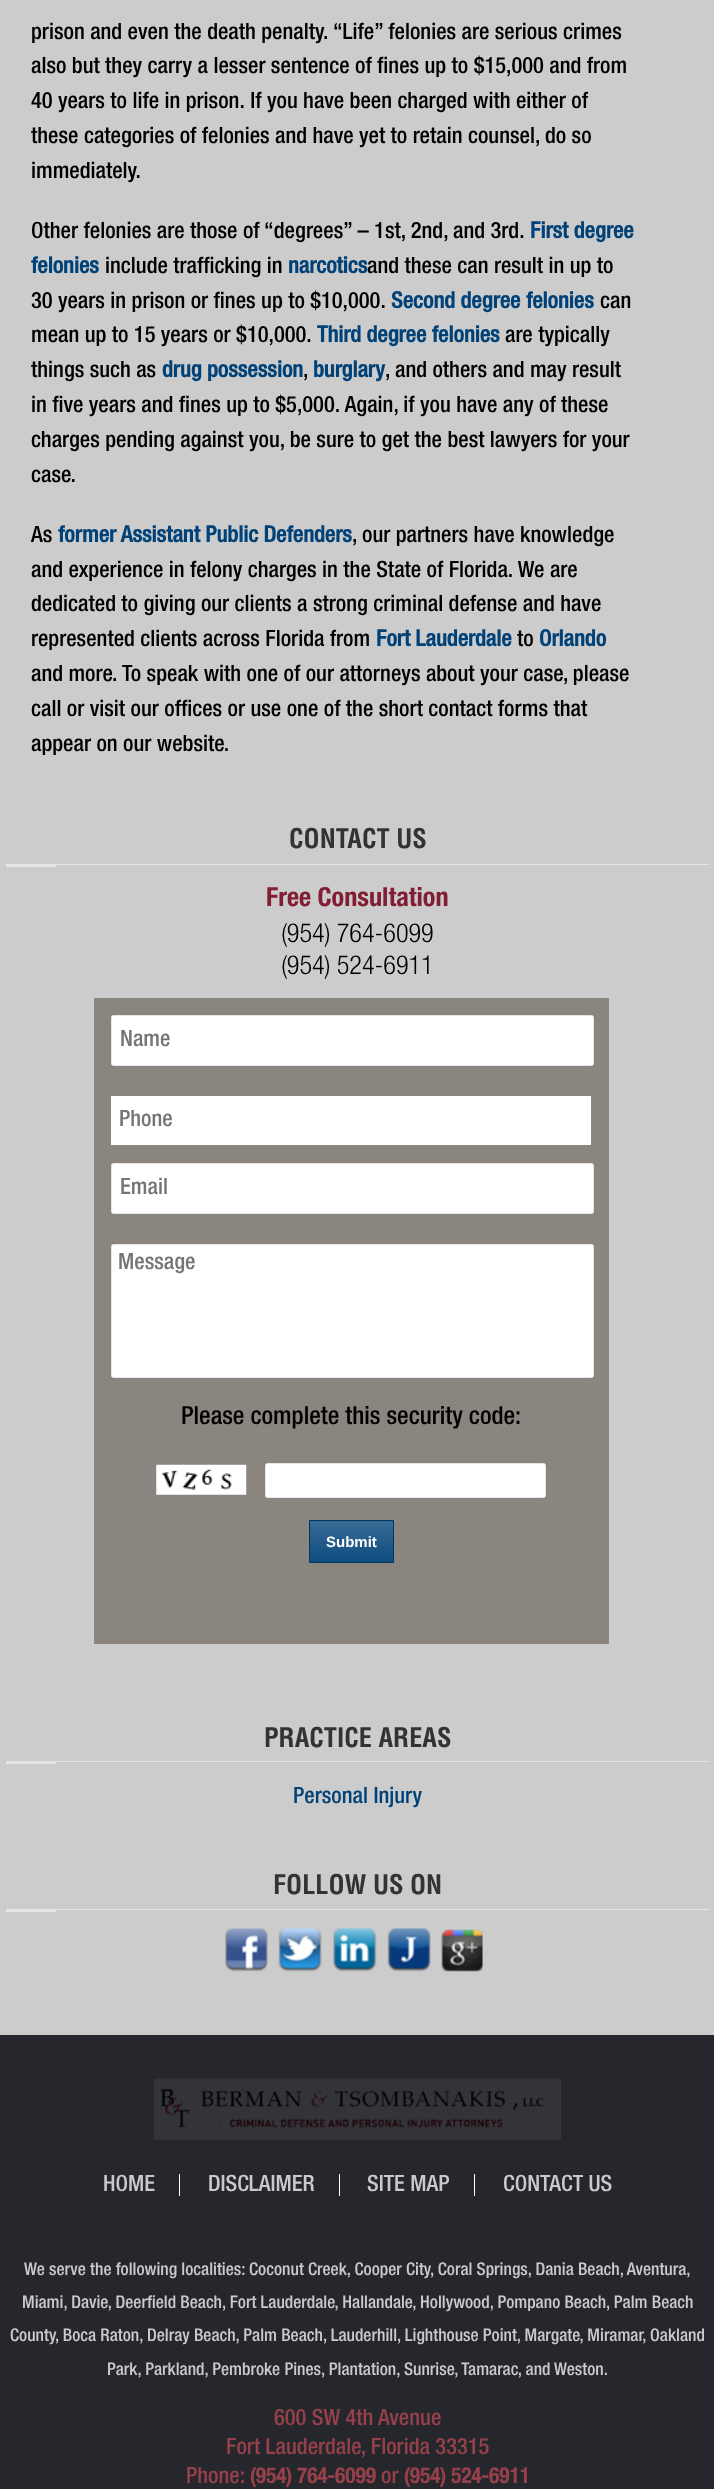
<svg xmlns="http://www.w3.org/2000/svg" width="714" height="2489">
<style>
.a{font:500 22.5px Helvetica Neue;fill:#000}
.b{font:bold 22.5px Helvetica Neue;fill:#004278}
.c{font:bold 26.25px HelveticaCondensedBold;fill:#333}
.d{font:bold 26.25px 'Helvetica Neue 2';fill:#811e33}
.e{font:300 26.25px 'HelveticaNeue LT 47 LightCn';fill:#000}
.f{font:500 22.5px Helvetica Neue;fill:#757575}
.g{font:500 25px Helvetica Neue;fill:#000}
.h{font:bold 15px Liberation Sans;fill:#fff}
.i{font:500 22.5px Helvetica Neue;fill:#004278}
.j{font:500 22.5px Helvetica Neue;fill:#cacaca}
.k{font:500 17.5px Helvetica Neue;fill:#cacaca}
.l{font:500 22.5px Helvetica Neue;fill:#95404a}
.m{font:bold 21.25px Helvetica Neue;fill:#95404a}
</style>
<rect width="100%" height="100%" fill="#26272c"/>
<path fill="#ccc" d="M0 0h714v2035H0z"/>
<path fill="#e6e6e6" d="M56 864h653v1H56z"/>
<path fill="#e6e6e6" d="M6 864h50v3H6z"/>
<path fill="#8b8580" d="M94 998h515v646H94z"/>
<rect fill="#fff" stroke="#e6e6e6" x="111.5" y="1015.5" width="482" height="50" rx="2"/>
<path fill="#fff" d="M111 1096h480v49H111z"/>
<rect fill="#fff" stroke="#e6e6e6" x="111.5" y="1163.5" width="482" height="50" rx="2"/>
<rect fill="#fff" stroke="#e6e6e6" x="111.5" y="1244.5" width="482" height="133" rx="2"/>
<image href="1.png" x="156" y="1464" width="91" height="31"/>
<rect fill="#fff" stroke="#e6e6e6" x="265.5" y="1463.5" width="280" height="34" rx="2"/>
<path fill="#004278" d="M310 1521h83v41H310z"/>
<image href="2.png" x="308" y="1521" width="85" height="41"/>
<path fill="none" stroke="#003560" d="M309.5 1520.5h84v42H309.5z"/>
<path fill="#e6e6e6" d="M56 1761h653v1H56z"/>
<path fill="#e6e6e6" d="M6 1761h50v3H6z"/>
<path fill="#e6e6e6" d="M56 1909h653v1H56z"/>
<path fill="#e6e6e6" d="M6 1909h50v3H6z"/>
<image href="3.png" x="225" y="1928" width="43" height="44"/>
<image href="4.png" x="278" y="1928" width="44" height="44"/>
<image href="5.png" x="333" y="1928" width="44" height="44"/>
<image href="6.png" x="387" y="1928" width="44" height="44"/>
<image href="7.png" x="441" y="1929" width="42" height="43"/>
<image href="8.png" x="154" y="2078" width="407" height="62"/>
<path fill="#fff" d="M179 2174h1v22H179z"/>
<path fill="#fff" d="M339 2174h1v22H339z"/>
<path fill="#fff" d="M474 2174h1v22H474z"/>
<text class="a" x="31" y="39">prison and even the death penalty. “Life” felonies are serious crimes</text>
<text class="a" x="31" y="73">also but they carry a lesser sentence of fines up to $15,000 and from</text>
<text class="a" x="31" y="108">40 years to life in prison. If you have been charged with either of</text>
<text class="a" x="31" y="143">these categories of felonies and have yet to retain counsel, do so</text>
<text class="a" x="31" y="178">immediately.</text>
<text class="a" x="31" y="238">Other felonies are those of “degrees” – 1st, 2nd, and 3rd.</text>
<text class="b" x="530" y="238">First degree</text>
<text class="b" x="31" y="273">felonies</text>
<text class="a" x="105" y="273">include trafficking in</text>
<text class="b" x="288" y="273">narcotics</text>
<text class="a" x="367" y="273">and these can result in up to</text>
<text class="a" x="31" y="308">30 years in prison or fines up to $10,000.</text>
<text class="b" x="391" y="308">Second degree felonies</text>
<text class="a" x="600" y="308">can</text>
<text class="a" x="31" y="342">mean up to 15 years or $10,000.</text>
<text class="b" x="317" y="342">Third degree felonies</text>
<text class="a" x="505" y="342">are typically</text>
<text class="a" x="31" y="377">things such as</text>
<text class="b" x="162" y="377">drug possession</text>
<text class="a" x="303" y="377">,</text>
<text class="b" x="313" y="377">burglary</text>
<text class="a" x="385" y="377">, and others and may result</text>
<text class="a" x="31" y="412">in five years and fines up to $5,000. Again, if you have any of these</text>
<text class="a" x="31" y="447">charges pending against you, be sure to get the best lawyers for your</text>
<text class="a" x="31" y="482">case.</text>
<text class="a" x="31" y="542">As</text>
<text class="b" x="58" y="542">former Assistant Public Defenders</text>
<text class="a" x="352" y="542">, our partners have knowledge</text>
<text class="a" x="31" y="577">and experience in felony charges in the State of Florida. We are</text>
<text class="a" x="31" y="611">dedicated to giving our clients a strong criminal defense and have</text>
<text class="a" x="31" y="646">represented clients across Florida from</text>
<text class="b" x="376" y="646">Fort Lauderdale</text>
<text class="a" x="517" y="646">to</text>
<text class="b" x="539" y="646">Orlando</text>
<text class="a" x="31" y="681">and more. To speak with one of our attorneys about your case, please</text>
<text class="a" x="31" y="716">call or visit our offices or use one of the short contact forms that</text>
<text class="a" x="31" y="751">appear on our website.</text>
<text class="c" x="289" y="848">CONTACT US</text>
<text class="d" x="266" y="906">Free Consultation</text>
<text class="e" x="281" y="942">(954) 764-6099</text>
<text class="e" x="281" y="974">(954) 524-6911</text>
<text class="f" x="120" y="1046">Name</text>
<text class="f" x="119" y="1126">Phone</text>
<text class="f" x="120" y="1194">Email</text>
<text class="f" x="118" y="1269">Message</text>
<text class="g" x="181" y="1424">Please complete this security code:</text>
<text class="h" x="326" y="1547">Submit</text>
<text class="c" x="264" y="1747">PRACTICE AREAS</text>
<text class="i" x="293" y="1803">Personal Injury</text>
<text class="c" x="273" y="1894">FOLLOW US ON</text>
<text class="j" x="103" y="2191">HOME</text>
<text class="j" x="208" y="2191">DISCLAIMER</text>
<text class="j" x="367" y="2191">SITE MAP</text>
<text class="j" x="503" y="2191">CONTACT US</text>
<text class="k" x="24" y="2275">We serve the following localities: Coconut Creek, Cooper City, Coral Springs, Dania Beach, Aventura,</text>
<text class="k" x="22" y="2308">Miami, Davie, Deerfield Beach, Fort Lauderdale, Hallandale, Hollywood, Pompano Beach, Palm Beach</text>
<text class="k" x="10" y="2341">County, Boca Raton, Delray Beach, Palm Beach, Lauderhill, Lighthouse Point, Margate, Miramar, Oakland</text>
<text class="k" x="107" y="2375">Park, Parkland, Pembroke Pines, Plantation, Sunrise, Tamarac, and Weston.</text>
<text class="l" x="274" y="2425">600 SW 4th Avenue</text>
<text class="l" x="226" y="2454">Fort Lauderdale, Florida 33315</text>
<text class="l" x="186" y="2483">Phone:</text>
<text class="m" x="250" y="2483">(954) 764-6099</text>
<text class="l" x="381" y="2483">or</text>
<text class="m" x="404" y="2483">(954) 524-6911</text>
</svg>
